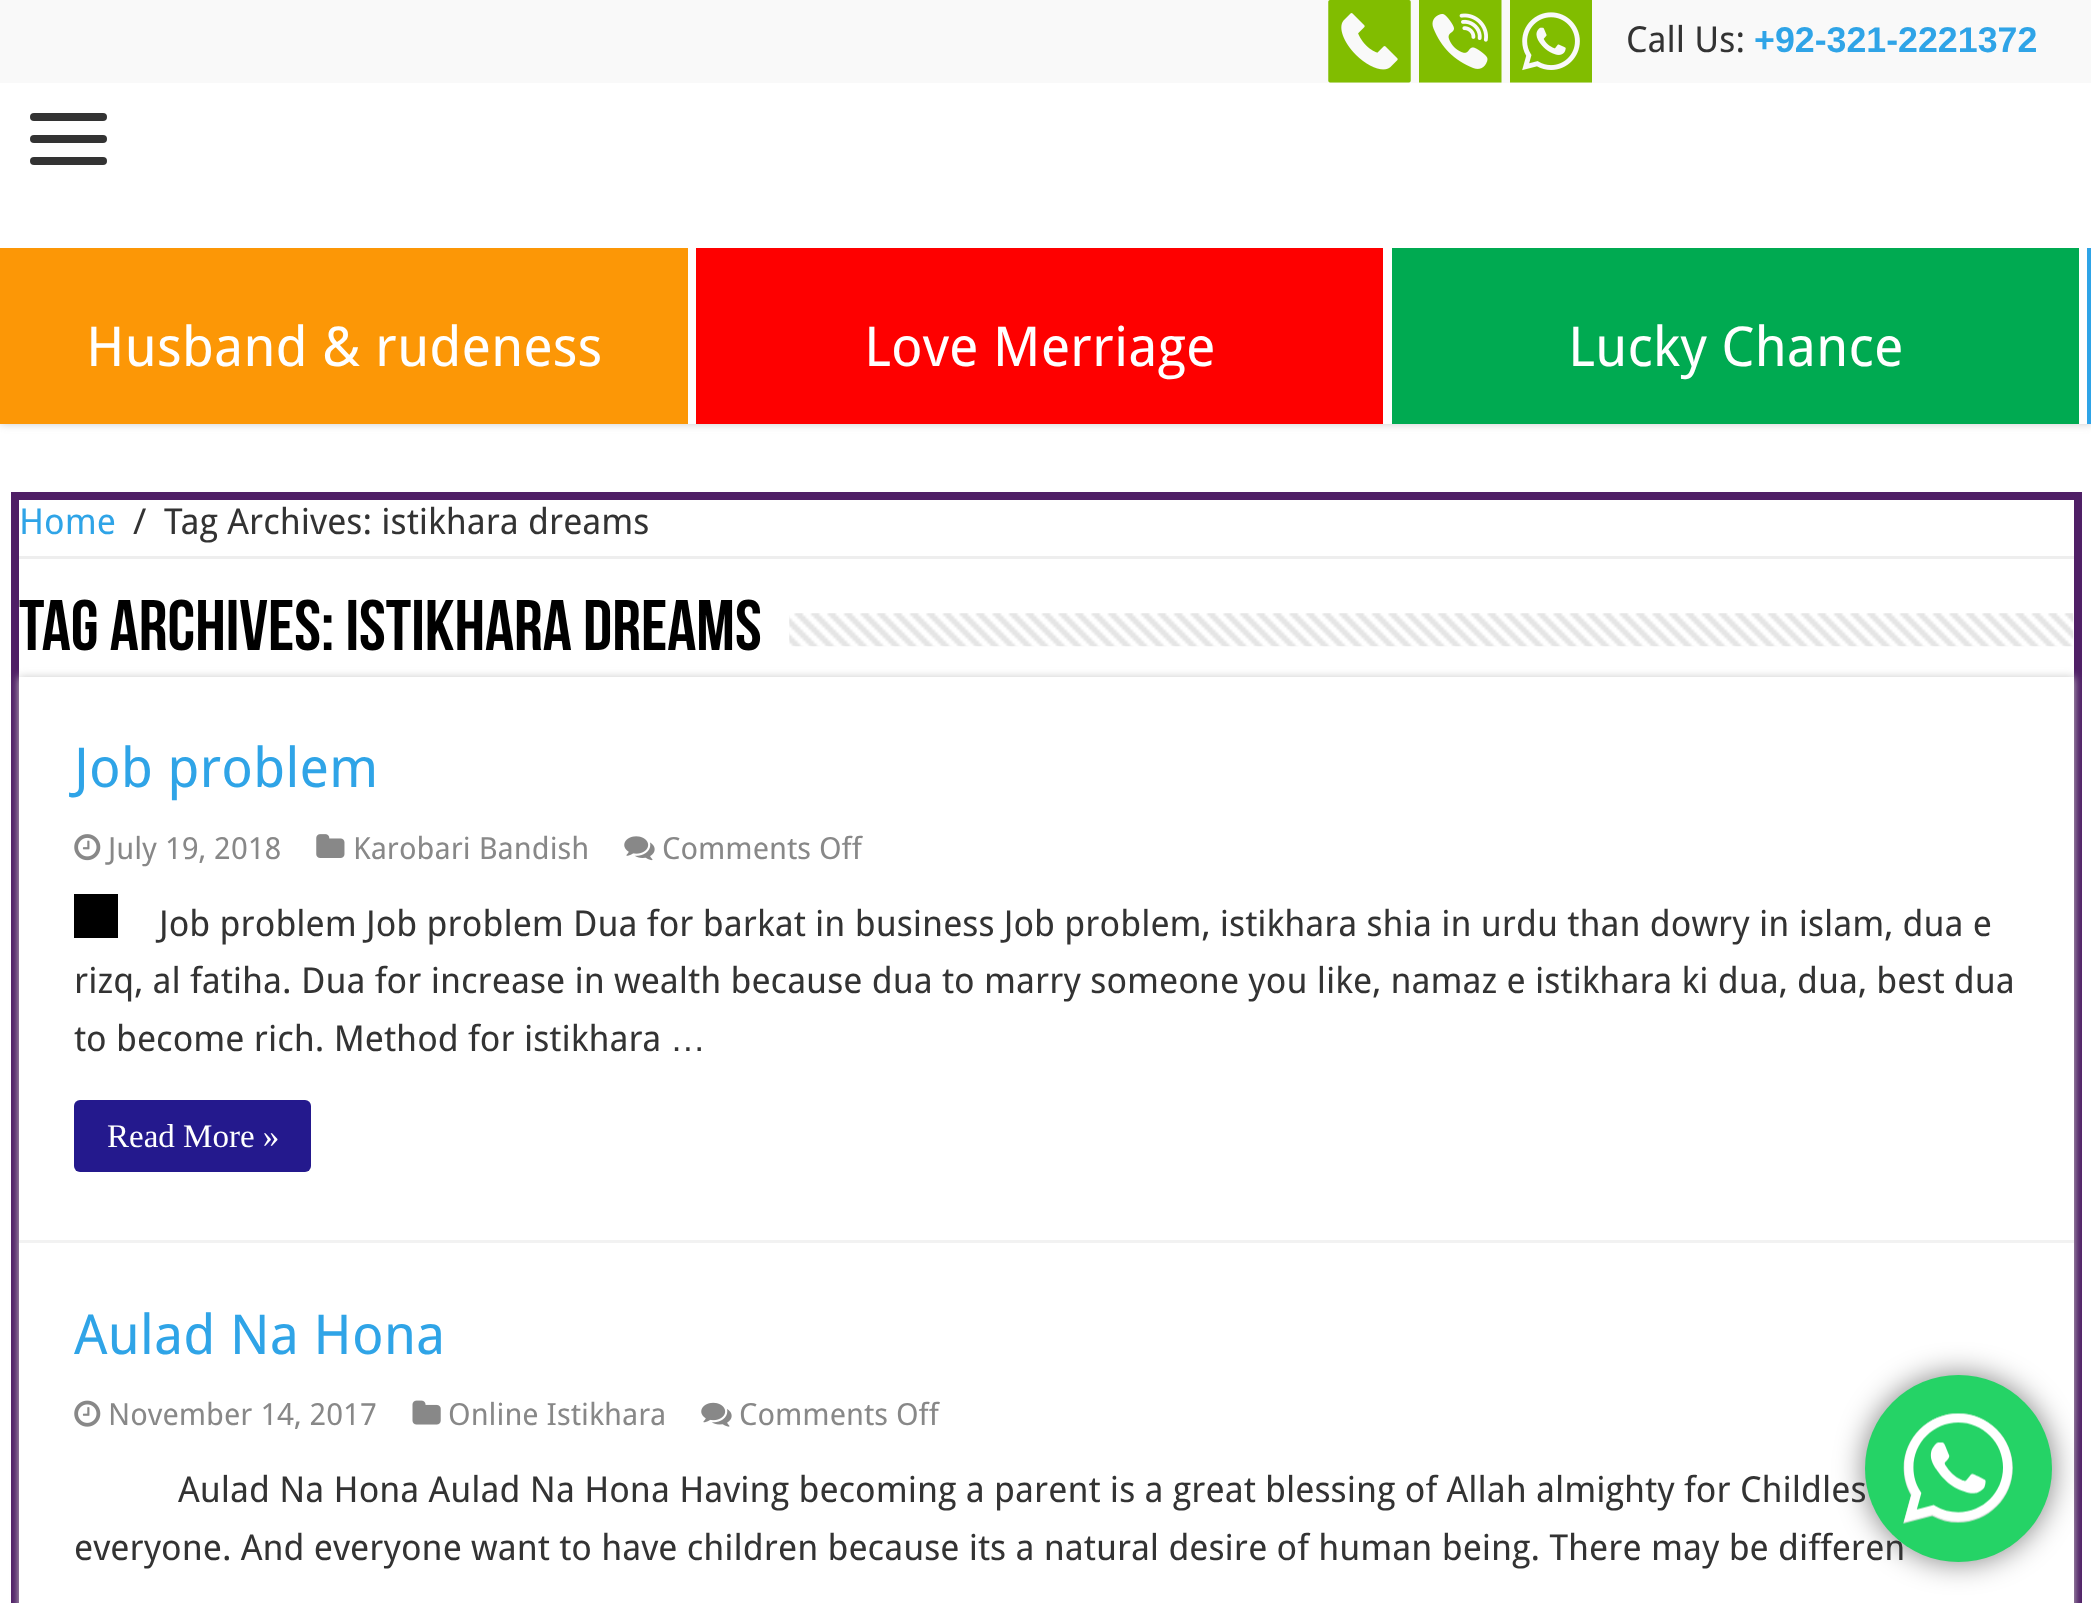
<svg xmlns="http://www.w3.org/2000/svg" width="2091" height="1603">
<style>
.a{font:35.75px Droid Sans;fill:#333}
.b{font:bold 35.75px Liberation Sans;fill:#2fa4e7}
.c{font:55px Droid Sans;fill:#fff}
.d{font:35.75px Droid Sans;fill:#2fa4e7}
.e{font:bold 71.5px Bebas Neue;fill:#000}
.f{font:55px Droid Sans;fill:#2fa4e7}
.g{font:30.5px Droid Sans;fill:#888}
.h{font:35.75px Liberation Sans;fill:#333}
.i{font:33px Liberation Serif;fill:#fff}
</style>
<rect width="100%" height="100%" fill="#fff"/>
<path fill="#cacaca" filter="blur(4px)" d="M0 0h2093v424H0z"/>
<path fill="#fff" d="M0 83h2091v341H0z"/>
<path fill="#f9f9f9" d="M0 0h2091v83H0z"/>
<image href="1.png" x="1328" y="0" width="83" height="83"/>
<image href="2.png" x="1419" y="0" width="83" height="83"/>
<image href="3.png" x="1510" y="0" width="82" height="83"/>
<rect fill="#333" x="30" y="113" width="77" height="8" rx="4"/>
<rect fill="#333" x="30" y="135" width="77" height="8" rx="4"/>
<rect fill="#333" x="30" y="157" width="77" height="8" rx="4"/>
<path fill="#fc9706" d="M0 248h688v176H0z"/>
<path fill="#fe0000" d="M696 248h687v176H696z"/>
<path fill="#00aa51" d="M1392 248h687v176H1392z"/>
<path fill="#2fa4e7" d="M2087 248h4v176H2087z"/>
<path fill="none" stroke="#4f1f66" stroke-width="8" d="M15 496h2063v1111H15z"/>
<path fill="#eee" d="M19 556h2055v3H19z"/>
<image href="4.png" x="789" y="613" width="1285" height="34"/>
<path fill="#cacaca" filter="blur(4px)" d="M19 677h2055v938H19z"/>
<path fill="#fff" d="M19 677h2055v926H19z"/>
<path fill="#f2f2f2" d="M19 1240h2055v3H19z"/>
<image href="5.png" x="74" y="834" width="27" height="27"/>
<image href="6.png" x="316" y="834" width="29" height="24"/>
<image href="7.png" x="624" y="836" width="31" height="25"/>
<path fill="#000" d="M74 894h44v44H74z"/>
<rect fill="#24198d" x="74" y="1100" width="237" height="72" rx="6"/>
<image href="8.png" x="74" y="1400" width="27" height="27"/>
<image href="9.png" x="412" y="1400" width="29" height="25"/>
<image href="10.png" x="701" y="1402" width="31" height="25"/>
<rect fill="#00000080" filter="blur(15px)" x="1865" y="1375" width="187" height="187" rx="93.5"/>
<text class="a" x="1626" y="52">Call Us:</text>
<text class="b" x="1754" y="52">+92-321-2221372</text>
<text class="c" x="86" y="366">Husband &amp; rudeness</text>
<text class="c" x="864" y="366">Love Merriage</text>
<text class="c" x="1568" y="366">Lucky Chance</text>
<text class="d" x="19" y="534">Home</text>
<text class="a" x="133" y="534">/</text>
<text class="a" x="164" y="534">Tag Archives: istikhara dreams</text>
<text class="e" x="19" y="650">Tag Archives: istikhara dreams</text>
<text class="f" x="74" y="787">Job problem</text>
<text class="g" x="108" y="859">July 19, 2018</text>
<text class="g" x="353" y="859">Karobari Bandish</text>
<text class="g" x="662" y="859">Comments Off</text>
<text class="a" x="159" y="936">Job problem Job problem Dua for barkat in business Job problem, istikhara shia in urdu than dowry in islam, dua e</text>
<text class="a" x="74" y="993">rizq, al fatiha. Dua for increase in wealth because dua to marry someone you like, namaz e istikhara ki dua, dua, best dua</text>
<text class="a" x="74" y="1051">to become rich. Method for istikhara</text>
<text class="h" x="670" y="1051">…</text>
<text class="i" x="107" y="1147">Read More »</text>
<text class="f" x="74" y="1354">Aulad Na Hona</text>
<text class="g" x="108" y="1425">November 14, 2017</text>
<text class="g" x="448" y="1425">Online Istikhara</text>
<text class="g" x="739" y="1425">Comments Off</text>
<text class="a" x="178" y="1502">Aulad Na Hona Aulad Na Hona Having becoming a parent is a great blessing of Allah almighty for Childles</text>
<text class="a" x="74" y="1560">everyone. And everyone want to have children because its a natural desire of human being. There may be differen</text>
<circle fill="#25d366" cx="1958.5" cy="1468.5" r="93.5"/>
<image href="11.png" x="1903" y="1413" width="110" height="111"/>
</svg>
